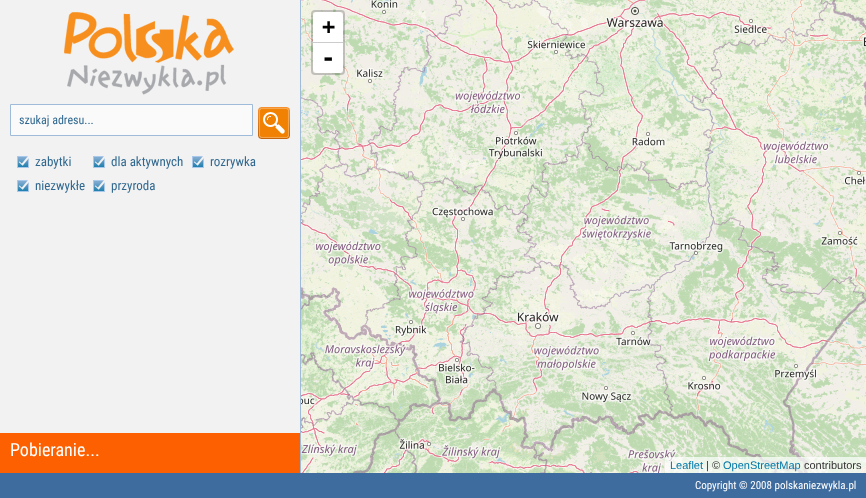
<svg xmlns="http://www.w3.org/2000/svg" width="866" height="498">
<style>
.a{font:12px Roboto Condensed;fill:#31688f}
.b{font:13px Roboto Condensed;fill:#31688f}
.c{font:18px Roboto Condensed;fill:#fff}
.d{font:bold 22px DejaVu Sans Mono;fill:#000}
.e{font:bold 24px DejaVu Sans Mono;fill:#000}
.f{font:11px Liberation Sans;fill:#0078a8}
.g{font:11px Liberation Sans;fill:#333}
.h{font:11px Roboto Condensed;fill:#fff}
</style>
<rect width="100%" height="100%" fill="#f2f2f2"/>
<path fill="#a0bbd9" d="M300 0h1v473H300z"/>
<image href="1.png" x="64" y="12" width="170" height="83"/>
<path fill="#fafafa" stroke="#a0bbd9" d="M10.5 104.5h242v31H10.5z"/>
<image href="2.png" x="258" y="107" width="32" height="32"/>
<image href="3.png" x="17" y="156" width="12" height="12"/>
<image href="3.png" x="93" y="156" width="12" height="12"/>
<image href="3.png" x="192" y="156" width="12" height="12"/>
<image href="3.png" x="17" y="180" width="12" height="12"/>
<image href="3.png" x="93" y="180" width="12" height="12"/>
<path fill="#fc6000" d="M0 433h300v40H0z"/>
<image href="4.png" x="301" y="0" width="214" height="230"/>
<image href="5.png" x="515" y="0" width="256" height="230"/>
<image href="6.png" x="771" y="0" width="95" height="230"/>
<image href="7.png" x="301" y="230" width="214" height="243"/>
<image href="8.png" x="515" y="230" width="256" height="243"/>
<image href="9.png" x="771" y="230" width="95" height="243"/>
<rect fill="none" stroke="#00000033" stroke-width="2" x="312" y="11" width="32" height="63" rx="3"/>
<path fill="#fff" d="M317 12h22c2 0 4 2 4 4v27h-30v-27c0-2 2-4 4-4z"/>
<path fill="#ccc" d="M313 42h30v1H313z"/>
<path fill="#fff" d="M313 43h30v26c0 2-2 4-4 4h-22c-2 0-4-2-4-4z"/>
<path fill="#ffffffb3" d="M665 457h201v16H665z"/>
<path fill="#3e6c9f" d="M0 473h866v25H0z"/>
<text class="a" x="19" y="124">szukaj adresu...</text>
<text class="b" x="35" y="166">zabytki</text>
<text class="b" x="111" y="166">dla aktywnych</text>
<text class="b" x="210" y="166">rozrywka</text>
<text class="b" x="35" y="190">niezwykłe</text>
<text class="b" x="111" y="190">przyroda</text>
<text class="c" x="10" y="456">Pobieranie...</text>
<text class="d" x="322" y="34">+</text>
<text class="e" x="321" y="66">-</text>
<text class="f" x="670" y="469">Leaflet</text>
<text class="g" x="706" y="469">| ©</text>
<text class="f" x="723" y="469">OpenStreetMap</text>
<text class="g" x="804" y="469">contributors</text>
<text class="h" x="695" y="489">Copyright © 2008 polskaniezwykla.pl</text>
</svg>
